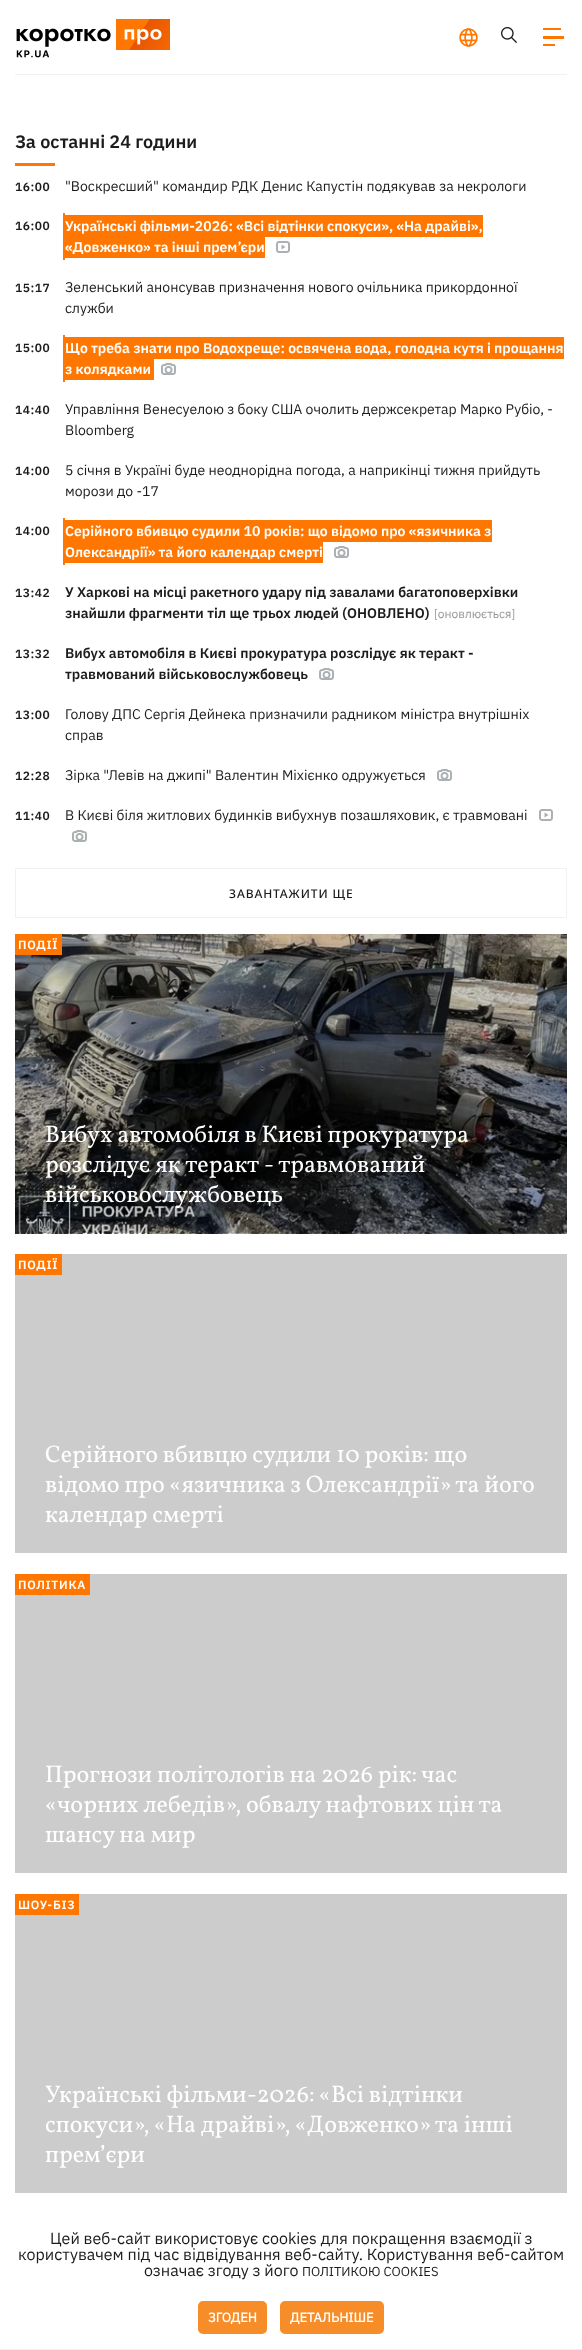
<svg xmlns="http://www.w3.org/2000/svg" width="582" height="2350">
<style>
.a{font:600 18px IBM Plex Sans;fill:#1b1c1c}
.b{font:600 12px IBM Plex Sans;letter-spacing:0.5px;fill:#1b1c1c}
.c{font:14px IBM Plex Sans;fill:#1b1c1c}
.d{font:600 14px IBM Plex Sans;fill:#fff}
.e{font:600 14px IBM Plex Sans;fill:#1b1c1c}
.f{font:12px IBM Plex Sans;fill:#96979b}
.g{font:500 12px Noto Sans;letter-spacing:0.9px;fill:#1b1c1c}
.h{font:600 12px IBM Plex Sans;letter-spacing:0.75px;fill:#fff}
.i{font:24px Vollkorn;fill:#fff}
.j{font:16px IBM Plex Sans;fill:#1b1c1c}
.k{font:13px IBM Plex Sans;fill:#1b1c1c}
.l{font:bold 13px IBM Plex Sans;fill:#fff}
</style>
<rect width="100%" height="100%" fill="#fff"/>
<path fill="#f0f1f2" d="M15 74h552v1H15z"/>
<image href="1.png" x="16" y="19" width="154" height="39"/>
<image href="2.png" x="459" y="28" width="19" height="19"/>
<image href="3.png" x="501" y="27" width="16" height="16"/>
<path fill="#f70" d="M543 28h18v2H543z"/>
<path fill="#f70" d="M543 36h21v3H543z"/>
<path fill="#f70" d="M543 44h12v2H543z"/>
<path fill="#f70" d="M15 163h40v3H15z"/>
<path fill="#f70" d="M63 213h2v47H63z"/>
<path fill="#f70" d="M65 215h418v22H65z"/>
<path fill="#f70" d="M65 237h200v21H65z"/>
<image href="4.png" x="276" y="241" width="14" height="12"/>
<path fill="#f70" d="M63 335h2v47H63z"/>
<path fill="#f70" d="M65 337h499v22H65z"/>
<path fill="#f70" d="M65 359h89v21H65z"/>
<image href="5.png" x="161" y="363" width="15" height="12"/>
<path fill="#f70" d="M63 518h2v47H63z"/>
<path fill="#f70" d="M65 520h427v22H65z"/>
<path fill="#f70" d="M65 542h258v21H65z"/>
<image href="5.png" x="334" y="546" width="15" height="12"/>
<image href="5.png" x="319" y="668" width="15" height="12"/>
<image href="5.png" x="437" y="769" width="15" height="12"/>
<image href="4.png" x="539" y="809" width="14" height="12"/>
<image href="5.png" x="72" y="830" width="15" height="12"/>
<path fill="none" stroke="#f0f1f2" d="M15.5 868.5h551v49H15.5z"/>
<image href="6.png" x="15" y="934" width="552" height="300"/>
<path fill="#f70" d="M15 934h47v21H15z"/>
<path fill="#ccc" d="M15 1254h552v299H15z"/>
<path fill="#f70" d="M15 1254h47v21H15z"/>
<path fill="#ccc" d="M15 1574h552v299H15z"/>
<path fill="#f70" d="M15 1574h75v21H15z"/>
<path fill="#ccc" d="M15 1894h552v299H15z"/>
<path fill="#f70" d="M15 1894h64v21H15z"/>
<path fill="#eceeef" d="M0 2349h582v1H0z"/>
<rect fill="#f68d29" stroke="#f68d29" stroke-width="2" x="199" y="2302" width="67" height="31" rx="4"/>
<rect fill="#f68d29" stroke="#f68d29" stroke-width="2" x="281" y="2302" width="102" height="31" rx="4"/>
<text class="a" x="15" y="148">За останні 24 години</text>
<text class="b" x="15" y="191">16:00</text>
<text class="c" x="65" y="191">"Воскресший" командир РДК Денис Капустін подякував за некрологи</text>
<text class="b" x="15" y="230">16:00</text>
<text class="d" x="65" y="231">Українські фільми-2026: «Всі відтінки спокуси», «На драйві»,</text>
<text class="d" x="65" y="252">«Довженко» та інші прем’єри</text>
<text class="b" x="15" y="292">15:17</text>
<text class="c" x="65" y="292">Зеленський анонсував призначення нового очільника прикордонної</text>
<text class="c" x="65" y="313">служби</text>
<text class="b" x="15" y="352">15:00</text>
<text class="d" x="65" y="353">Що треба знати про Водохреще: освячена вода, голодна кутя і прощання</text>
<text class="d" x="65" y="374">з колядками</text>
<text class="b" x="15" y="414">14:40</text>
<text class="c" x="65" y="414">Управління Венесуелою з боку США очолить держсекретар Марко Рубіо, -</text>
<text class="c" x="65" y="435">Bloomberg</text>
<text class="b" x="15" y="475">14:00</text>
<text class="c" x="65" y="475">5 січня в Україні буде неоднорідна погода, а наприкінці тижня прийдуть</text>
<text class="c" x="65" y="496">морози до -17</text>
<text class="b" x="15" y="535">14:00</text>
<text class="d" x="65" y="536">Серійного вбивцю судили 10 років: що відомо про «язичника з</text>
<text class="d" x="65" y="557">Олександрії» та його календар смерті</text>
<text class="b" x="15" y="597">13:42</text>
<text class="e" x="65" y="597">У Харкові на місці ракетного удару під завалами багатоповерхівки</text>
<text class="e" x="65" y="618">знайшли фрагменти тіл ще трьох людей (ОНОВЛЕНО)</text>
<text class="f" x="434" y="618">[оновлюється]</text>
<text class="b" x="15" y="658">13:32</text>
<text class="e" x="65" y="658">Вибух автомобіля в Києві прокуратура розслідує як теракт -</text>
<text class="e" x="65" y="679">травмований військовослужбовець</text>
<text class="b" x="15" y="719">13:00</text>
<text class="c" x="65" y="719">Голову ДПС Сергія Дейнека призначили радником міністра внутрішніх</text>
<text class="c" x="65" y="740">справ</text>
<text class="b" x="15" y="780">12:28</text>
<text class="c" x="65" y="780">Зірка "Левів на джипі" Валентин Міхієнко одружується</text>
<text class="b" x="15" y="820">11:40</text>
<text class="c" x="65" y="820">В Києві біля житлових будинків вибухнув позашляховик, є травмовані</text>
<text class="g" x="229" y="898">ЗАВАНТАЖИТИ ЩЕ</text>
<text class="h" x="18" y="949">ПОДІЇ</text>
<text class="i" x="45" y="1142">Вибух автомобіля в Києві прокуратура</text>
<text class="i" x="45" y="1172" word-spacing="0.5">розслідує як теракт - травмований</text>
<text class="i" x="45" y="1202">військовослужбовець</text>
<text class="h" x="18" y="1269">ПОДІЇ</text>
<text class="i" x="45" y="1462">Серійного вбивцю судили 10 років: що</text>
<text class="i" x="45" y="1492">відомо про «язичника з Олександрії» та його</text>
<text class="i" x="45" y="1522">календар смерті</text>
<text class="h" x="18" y="1589">ПОЛІТИКА</text>
<text class="i" x="45" y="1782">Прогнози політологів на 2026 рік: час</text>
<text class="i" x="45" y="1812">«чорних лебедів», обвалу нафтових цін та</text>
<text class="i" x="45" y="1842">шансу на мир</text>
<text class="h" x="18" y="1909">ШОУ-БІЗ</text>
<text class="i" x="45" y="2102">Українські фільми-2026: «Всі відтінки</text>
<text class="i" x="45" y="2132">спокуси», «На драйві», «Довженко» та інші</text>
<text class="i" x="45" y="2162">прем’єри</text>
<text class="j" x="50" y="2244">Цей веб-сайт використовує cookies для покращення взаємодії з</text>
<text class="j" x="18" y="2260">користувачем під час відвідування веб-сайту. Користування веб-сайтом</text>
<text class="j" x="144" y="2276">означає згоду з його</text>
<text class="k" x="302" y="2276">ПОЛІТИКОЮ COOKIES</text>
<text class="l" x="208" y="2322">ЗГОДЕН</text>
<text class="l" x="290" y="2322">ДЕТАЛЬНІШЕ</text>
</svg>
